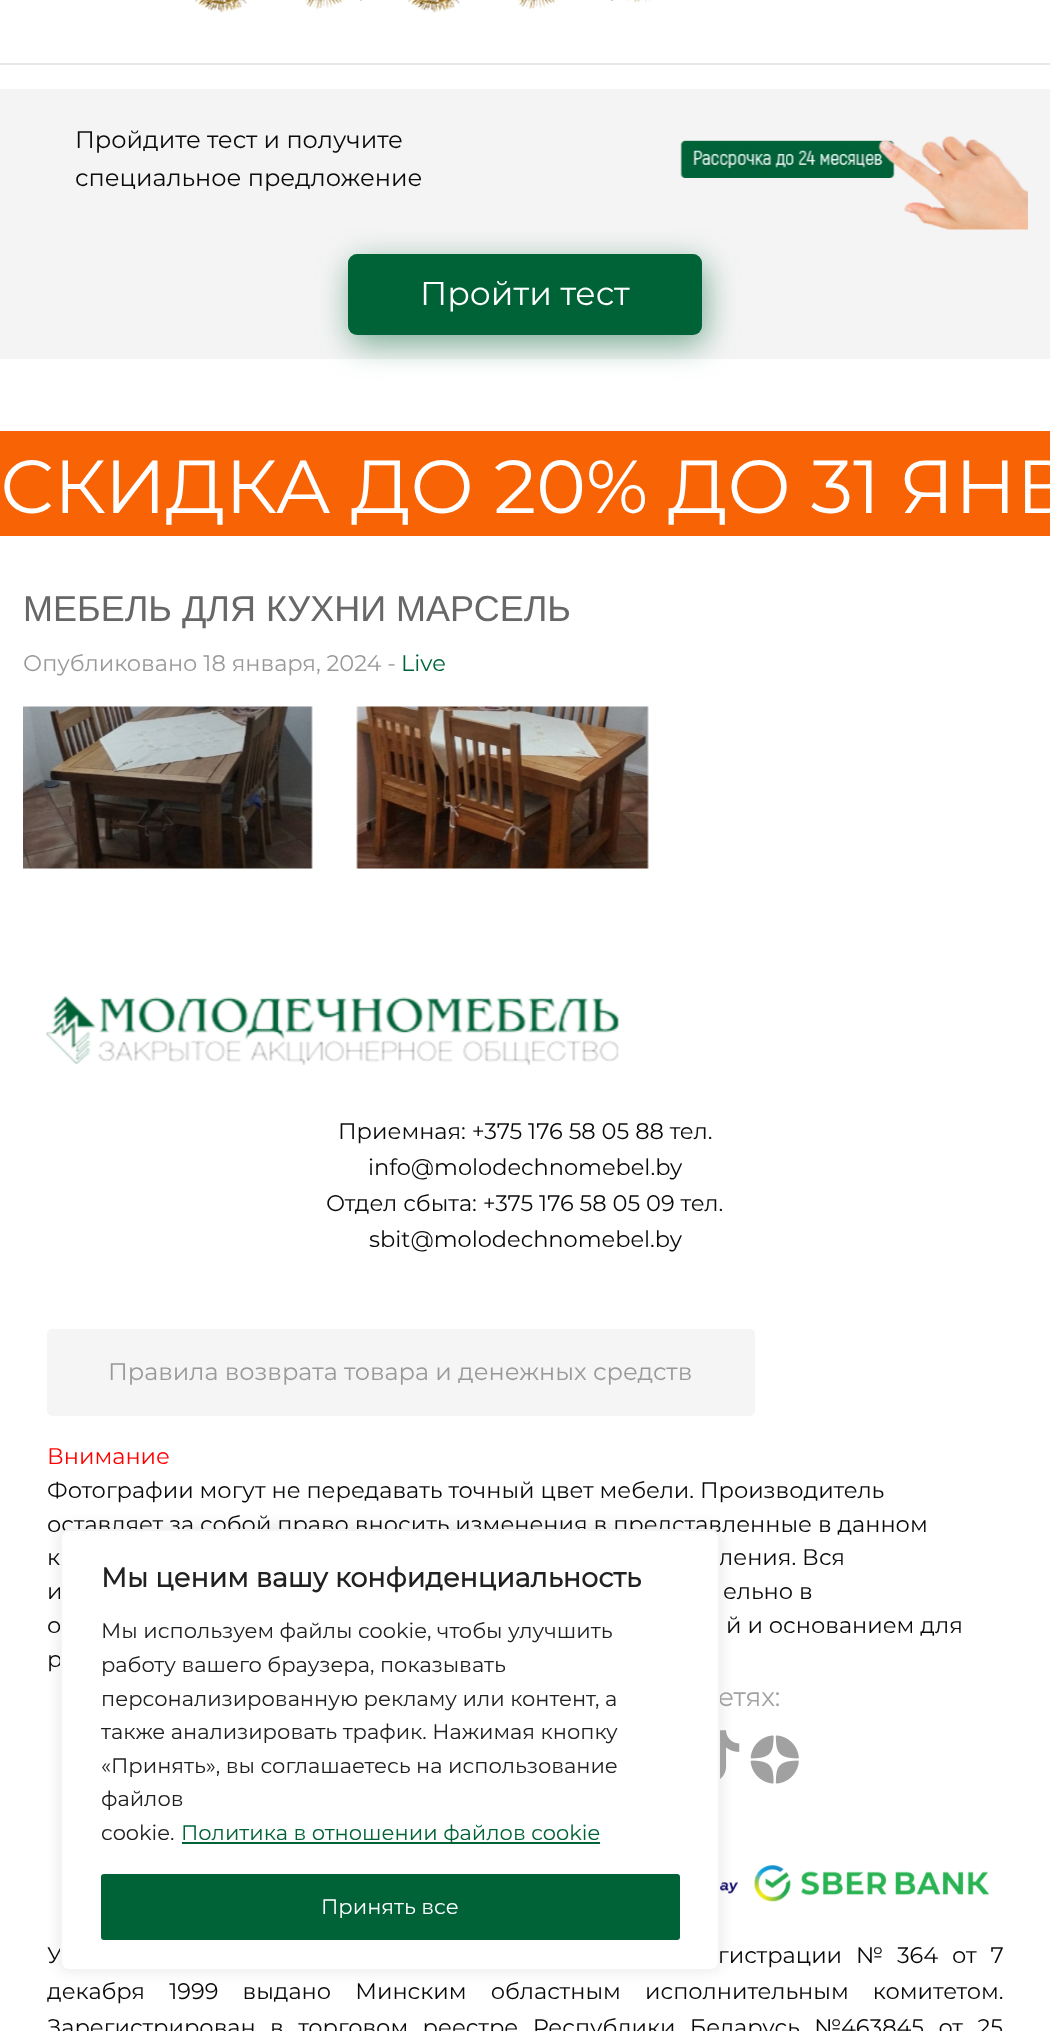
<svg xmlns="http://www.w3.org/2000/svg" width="1050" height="2031">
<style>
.a{font:24px Montserrat;fill:#0a0a0a}
.b{font:33px Montserrat;fill:#fff}
.c{font:75px Montserrat;fill:#fff}
.d{font:36px Liberation Sans;fill:#676767}
.e{font:22.5px Montserrat;fill:#999}
.f{font:22.5px Montserrat;fill:#006338}
.g{font:22.5px Montserrat;fill:#0a0a0a}
.h{font:24px Montserrat;fill:#999}
.i{font:22.5px Montserrat;fill:#f00}
.j{font:26px Montserrat;fill:#a1a1a1}
.k{font:bold 27px Montserrat;fill:#212121}
.l{font:21px Montserrat;fill:#212121}
.m{font:21px Montserrat;fill:#006338}
.n{font:21px Montserrat;fill:#fff}
</style>
<rect width="100%" height="100%" fill="#fff"/>
<path fill="#e6e6e6" d="M0 63h1050v2H0z"/>
<image href="1.png" x="194" y="0" width="457" height="13"/>
<path fill="#f4f4f4" d="M0 89h1050v270H0z"/>
<image href="2.png" x="680" y="136" width="348" height="94"/>
<rect fill="#00633880" filter="blur(16px)" x="351" y="263" width="354" height="81" rx="9"/>
<rect fill="#006338" x="348" y="254" width="354" height="81" rx="9"/>
<path fill="#f86305" d="M0 431h1050v105H0z"/>
<image href="3.png" x="23" y="706" width="290" height="163"/>
<image href="4.png" x="356" y="706" width="293" height="163"/>
<image href="5.png" x="46" y="996" width="573" height="69"/>
<rect fill="#f5f5f5" x="47" y="1329" width="708" height="87" rx="5"/>
<image href="6.png" x="720" y="1730" width="20" height="49"/>
<image href="7.png" x="750" y="1735" width="49" height="49"/>
<image href="8.png" x="720" y="1865" width="270" height="37"/>
<rect fill="#acabab4d" filter="blur(7.5px)" x="60" y="1527" width="660" height="443" rx="9"/>
<text class="a" x="75" y="148">Пройдите тест и получите</text>
<text class="a" x="75" y="186">специальное предложение</text>
<text class="b" x="420" y="305">Пройти тест</text>
<text class="c" x="0" y="513">СКИДКА ДО 20% ДО 31 ЯНВ</text>
<text class="d" x="23" y="621">МЕБЕЛЬ ДЛЯ КУХНИ МАРСЕЛЬ</text>
<text class="e" x="23" y="671">Опубликовано 18 января, 2024 -</text>
<text class="f" x="401" y="671">Live</text>
<text class="g" x="338" y="1139">Приемная: +375 176 58 05 88 тел.</text>
<text class="g" x="368" y="1175">info@molodechnomebel.by</text>
<text class="g" x="326" y="1211">Отдел сбыта: +375 176 58 05 09 тел.</text>
<text class="g" x="369" y="1247">sbit@molodechnomebel.by</text>
<text class="h" x="108" y="1380">Правила возврата товара и денежных средств</text>
<text class="i" x="47" y="1464">Внимание</text>
<text class="g" x="47" y="1498">Фотографии могут не передавать точный цвет мебели. Производитель</text>
<text class="g" x="47" y="1532">оставляет за собой право вносить изменения в представленные в данном</text>
<text class="g" x="47" y="1565">к</text>
<text class="g" x="719" y="1565">ления. Вся</text>
<text class="g" x="47" y="1599">и</text>
<text class="g" x="723" y="1599">ельно в</text>
<text class="g" x="47" y="1633">о</text>
<text class="g" x="726" y="1633">й и основанием для</text>
<text class="g" x="47" y="1667">р</text>
<text class="j" x="718" y="1706">етях:</text>
<text class="g" x="47" y="1963" word-spacing="8">У</text>
<text class="g" x="718" y="1963" word-spacing="8">гистрации № 364 от 7</text>
<text class="g" x="47" y="1999" word-spacing="18.25">декабря 1999 выдано Минским областным исполнительным комитетом.</text>
<text class="g" x="47" y="2035" word-spacing="8.5">Зарегистрирован в торговом реестре Республики Беларусь №463845 от 25</text>
<rect fill="#fff" stroke="#f4f4f4" stroke-width="2" x="61" y="1530" width="658" height="440" rx="8"/>
<text class="k" x="101" y="1587">Мы ценим вашу конфиденциальность</text>
<text class="l" x="101" y="1638">Мы используем файлы cookie, чтобы улучшить</text>
<text class="l" x="101" y="1672">работу вашего браузера, показывать</text>
<text class="l" x="101" y="1706">персонализированную рекламу или контент, а</text>
<text class="l" x="101" y="1739">также анализировать трафик. Нажимая кнопку</text>
<text class="l" x="101" y="1773">«Принять», вы соглашаетесь на использование</text>
<text class="l" x="101" y="1806">файлов</text>
<text class="l" x="101" y="1840">cookie.</text>
<path fill="#006338" d="M182 1842h418v2H182z"/>
<text class="m" x="181" y="1840">Политика в отношении файлов cookie</text>
<rect fill="#006338" stroke="#006338" stroke-width="3" x="102.5" y="1875.5" width="576" height="63" rx="1.5"/>
<text class="n" x="321" y="1914">Принять все</text>
</svg>
